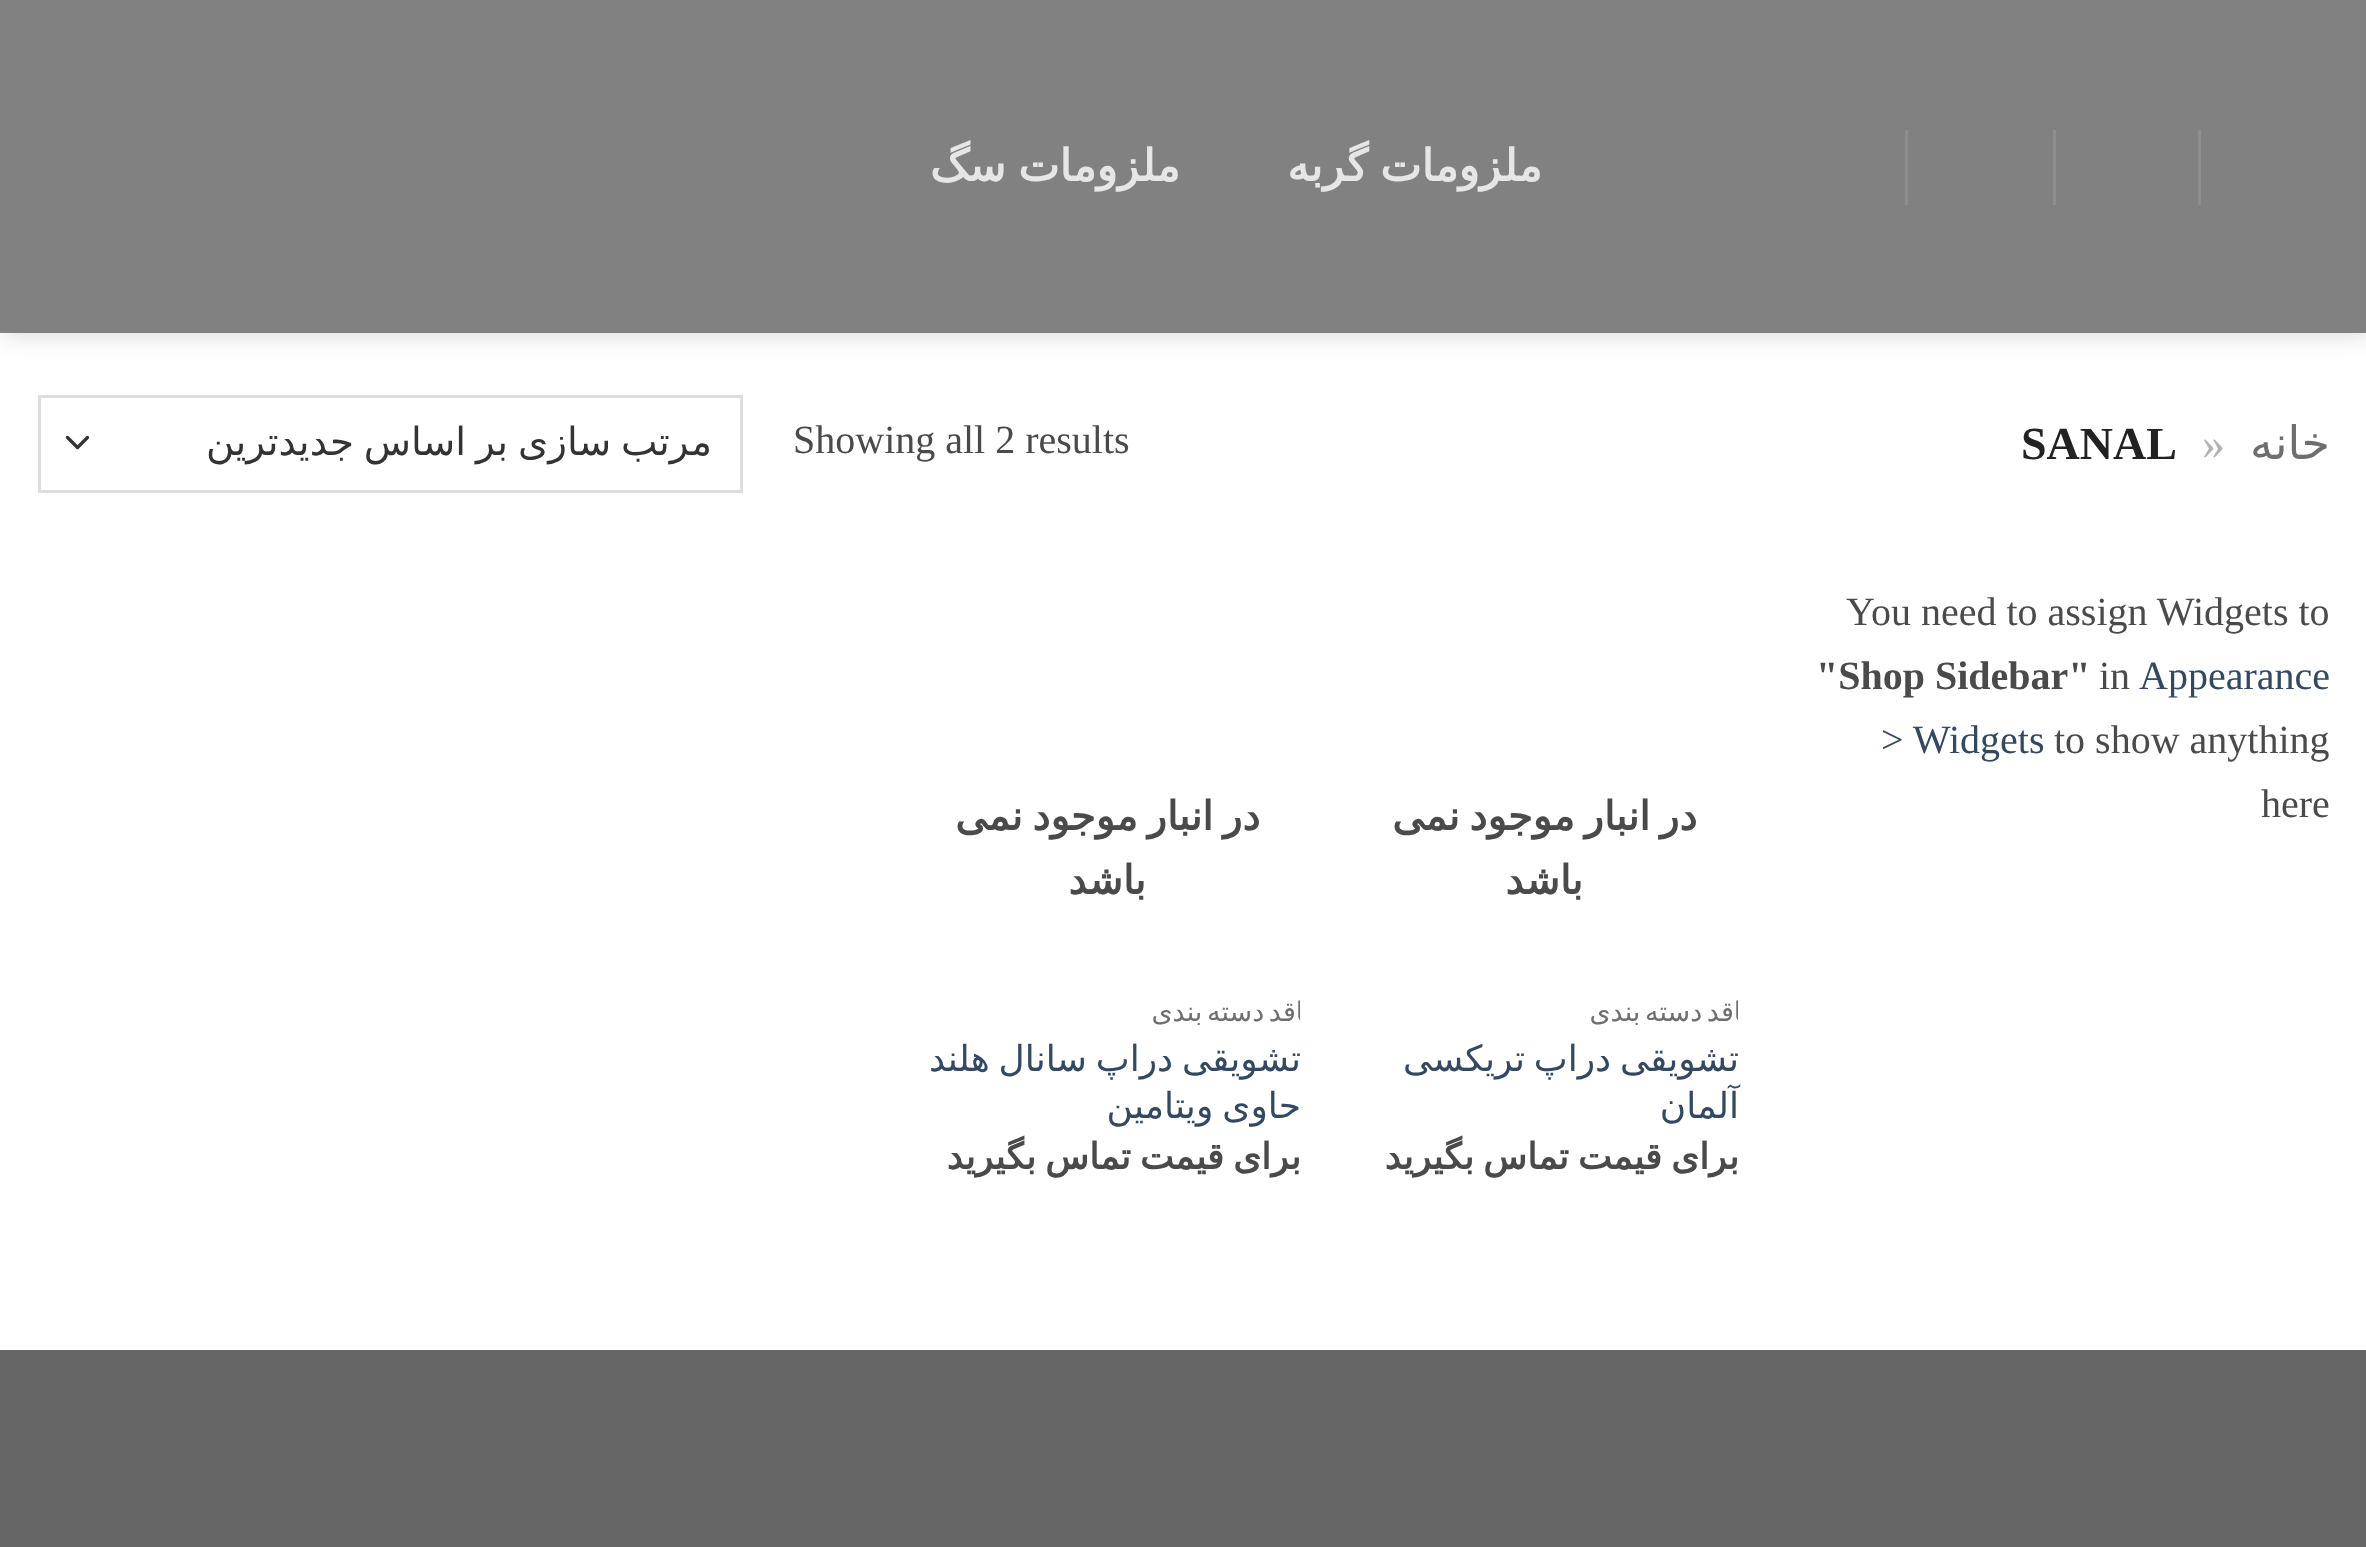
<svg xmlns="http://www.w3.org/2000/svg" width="2366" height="1547">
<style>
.a{font:bold 44px DejaVu Sans;direction:rtl;fill:#e6e6e6}
.b{font:46px DejaVu Sans;direction:rtl;fill:#6e6e6e}
.c{font:46px Liberation Serif;fill:#b2b2b2}
.d{font:bold 46px Liberation Serif;fill:#222}
.e{font:40px Liberation Serif;fill:#4a4a4a}
.f{font:38.75px DejaVu Sans;direction:rtl;fill:#333}
.g{font:40px Liberation Serif;fill:#334862}
.h{font:bold 40px Liberation Serif;fill:#4a4a4a}
.i{font:bold 40px DejaVu Sans;direction:rtl;fill:#4a4a4a}
.j{font:27px DejaVu Sans;letter-spacing:1.4px;direction:rtl;fill:#6e6e6e}
.k{font:36px DejaVu Sans;direction:rtl;fill:#334862}
.l{font:bold 36px DejaVu Sans;direction:rtl;fill:#4a4a4a}
</style>
<defs>
<clipPath id="clip1"><path d="M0 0h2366v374h-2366zm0 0h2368v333h-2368z" clip-rule="evenodd"/></clipPath>
<clipPath id="clip2"><path d="M1350 998h388v30H1350z"/></clipPath>
<clipPath id="clip3"><path d="M913 998h387v30H913z"/></clipPath>
</defs>
<rect width="100%" height="100%" fill="#fff"/>
<g clip-path="url(#clip1)">
<path fill="#00000026" filter="blur(12.5px)" d="M3 3h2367v332H3z"/>
</g>
<path fill="#2d2d2d99" d="M0 0h2366v333H0z"/>
<path fill="#8e8e8e" d="M2198 130h3v75H2198z"/>
<path fill="#8e8e8e" d="M2053 130h3v75H2053z"/>
<path fill="#8e8e8e" d="M1905 130h3v75H1905z"/>
<path fill="none" stroke="#333" stroke-width="3.3" stroke-linecap="round" stroke-linejoin="round" d="M67.5 437.5l10 10l10-10"/>
<path fill="none" stroke="#ddd" stroke-width="3" d="M39.5 396.5h702v95H39.5z"/>
<path fill="#666" d="M0 1350h2366v197H0z"/>
<text class="a" x="1542" y="181" word-spacing="-2">ملزومات گربه</text>
<text class="a" x="1180" y="181" word-spacing="-2">ملزومات سگ</text>
<text class="b" x="2330" y="459">خانه</text>
<text class="c" x="2202" y="459">»</text>
<text class="d" x="2021" y="459">SANAL</text>
<text class="e" x="793" y="453">Showing all 2 results</text>
<text class="f" x="712" y="455" word-spacing="-2.5">مرتب سازی بر اساس جدیدترین</text>
<text class="e" x="1846" y="625">You need to assign Widgets to</text>
<text class="g" x="2139" y="689">Appearance</text>
<text class="e" x="2099" y="689">in</text>
<text class="h" x="1816" y="689">"Shop Sidebar"</text>
<text class="e" x="2054" y="753">to show anything</text>
<text class="g" x="1881" y="753">&gt; Widgets</text>
<text class="e" x="2261" y="817">here</text>
<text class="i" x="1697" y="830" word-spacing="-3">در انبار موجود نمی</text>
<text class="i" x="1583" y="894">باشد</text>
<g clip-path="url(#clip2)">
<text class="j" x="1755" y="1021" word-spacing="-4">فاقد دسته بندی</text>
</g>
<text class="k" x="1739" y="1071" word-spacing="-2.5">تشویقی دراپ</text>
<text class="k" x="1525" y="1071">تریکسی</text>
<text class="k" x="1739" y="1118">آلمان</text>
<text class="l" x="1739" y="1169" word-spacing="-2.5">برای قیمت تماس بگیرید</text>
<text class="i" x="1260" y="830" word-spacing="-3">در انبار موجود نمی</text>
<text class="i" x="1146" y="894">باشد</text>
<g clip-path="url(#clip3)">
<text class="j" x="1317" y="1021" word-spacing="-4">فاقد دسته بندی</text>
</g>
<text class="k" x="1301" y="1071" word-spacing="-2.5">تشویقی دراپ سانال هلند</text>
<text class="k" x="1301" y="1118" word-spacing="-2.5">حاوی ویتامین</text>
<text class="l" x="1301" y="1169" word-spacing="-2.5">برای قیمت تماس بگیرید</text>
</svg>
